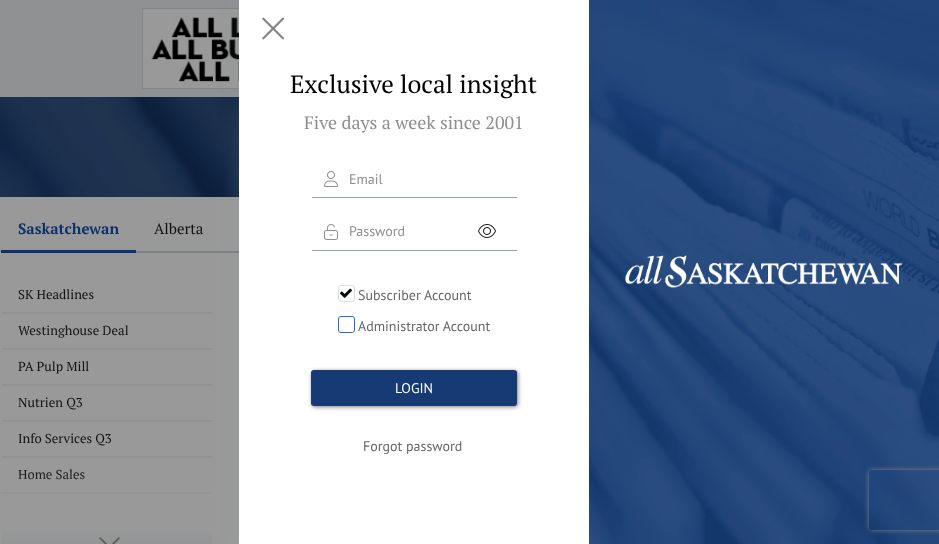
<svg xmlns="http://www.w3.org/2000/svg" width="939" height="544">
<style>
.a{font:bold 15px PT Serif;fill:#0d316a}
.b{font:15px PT Serif;fill:#141414}
.c{font:13px PT Serif;fill:#141414}
.d{font:25px PT Serif;fill:#000}
.e{font:18px PT Serif;fill:#8e8e8e}
.f{font:14px PT Sans;fill:#8e8e8e}
.g{font:14px PT Sans;fill:#666}
.h{font:14px PT Sans;fill:#fff}
</style>
<defs>
<linearGradient id="g1" gradientUnits="userSpaceOnUse" x1="107" y1="521" x2="107" y2="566"><stop offset="0" stop-color="#999"/><stop offset="1" stop-color="#8f9193"/></linearGradient>
<linearGradient id="g2" gradientUnits="userSpaceOnUse" x1="141" y1="471" x2="141" y2="521"><stop offset="0" stop-color="#999" stop-opacity="0"/><stop offset="1" stop-color="#999"/></linearGradient>
<clipPath id="clip1"><path d="M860 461h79v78h-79zm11 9h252c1 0 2 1 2 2v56c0 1-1 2-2 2h-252c-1 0-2-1-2-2v-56c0-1 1-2 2-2z" clip-rule="evenodd"/></clipPath>
</defs>
<rect width="100%" height="100%" fill="#999"/>
<path fill="#8f9193" d="M0 0h239v97H0z"/>
<path fill="none" stroke="#808385" d="M142.5 8.5h654v80H142.5z"/>
<image href="1.png" x="142" y="8" width="97" height="81"/>
<image href="2.png" x="0" y="97" width="239" height="100"/>
<path fill="#0d316a" d="M1 250h135v3H1z"/>
<path fill="#7c8284" d="M136 251h103v2H136z"/>
<path fill="#8f9193" d="M2 312h210v1H2z"/>
<path fill="#8f9193" d="M2 348h210v1H2z"/>
<path fill="#929494" d="M2 313h210v1H2z"/>
<path fill="#8f9193" d="M2 384h210v1H2z"/>
<path fill="#929494" d="M2 349h210v1H2z"/>
<path fill="#8f9193" d="M2 420h210v1H2z"/>
<path fill="#929494" d="M2 385h210v1H2z"/>
<path fill="#8f9193" d="M2 456h210v1H2z"/>
<path fill="#929494" d="M2 421h210v1H2z"/>
<path fill="#8f9193" d="M2 492h210v1H2z"/>
<path fill="#929494" d="M2 457h210v1H2z"/>
<path fill="#929494" d="M2 493h210v1H2z"/>
<path fill="url(#g1)" d="M2 532h210v12H2z"/>
<image href="3.png" x="99" y="537" width="21" height="7"/>
<text class="a" x="18" y="234">Saskatchewan</text>
<text class="b" x="154" y="234">Alberta</text>
<text class="c" x="18" y="299">SK Headlines</text>
<text class="c" x="18" y="335">Westinghouse Deal</text>
<text class="c" x="18" y="371">PA Pulp Mill</text>
<text class="c" x="18" y="407">Nutrien Q3</text>
<text class="c" x="18" y="443">Info Services Q3</text>
<text class="c" x="18" y="479">Home Sales</text>
<path fill="url(#g2)" d="M2 472h210v22H2z"/>
<path fill="#90a4ae26" filter="blur(10px)" d="M239 0h700v544H239z"/>
<path fill="#fff" d="M239 0h350v544H239z"/>
<image href="4.png" x="262" y="17" width="22" height="23"/>
<image href="5.png" x="589" y="0" width="350" height="544"/>
<image href="6.png" x="625" y="255" width="277" height="34"/>
<text class="d" x="290" y="93">Exclusive local insight</text>
<text class="e" x="304" y="129">Five days a week since 2001</text>
<image href="7.png" x="324" y="171" width="14" height="16"/>
<path fill="#90a4ae" d="M311 197h206v1H311z"/>
<path fill="#fff" d="M311 197h1v1H311z"/>
<text class="f" x="349" y="184">Email</text>
<image href="8.png" x="324" y="224" width="14" height="16"/>
<path fill="#90a4ae" d="M311 250h206v1H311z"/>
<path fill="#fff" d="M311 250h1v1H311z"/>
<text class="f" x="349" y="236">Password</text>
<image href="9.png" x="478" y="224" width="18" height="14"/>
<rect fill="none" stroke="#d8dfe3" x="338.5" y="285.5" width="16" height="16" rx="2.5"/>
<image href="10.png" x="340" y="288" width="12" height="10"/>
<text class="g" x="358" y="300">Subscriber Account</text>
<rect fill="none" stroke="#206bdf" x="338.5" y="316.5" width="16" height="16" rx="2.5"/>
<text class="g" x="358" y="331">Administrator Account</text>
<rect fill="#808080" filter="blur(2px)" x="312" y="371" width="206" height="36" rx="3"/>
<rect fill="#163b74" x="311" y="370" width="206" height="36" rx="3"/>
<text class="h" x="395" y="393">LOGIN</text>
<text class="g" x="363" y="451">Forgot password</text>
<g clip-path="url(#clip1)">
<rect fill="#808080" filter="blur(2.5px)" x="869" y="470" width="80" height="60" rx="2"/>
</g>
</svg>
